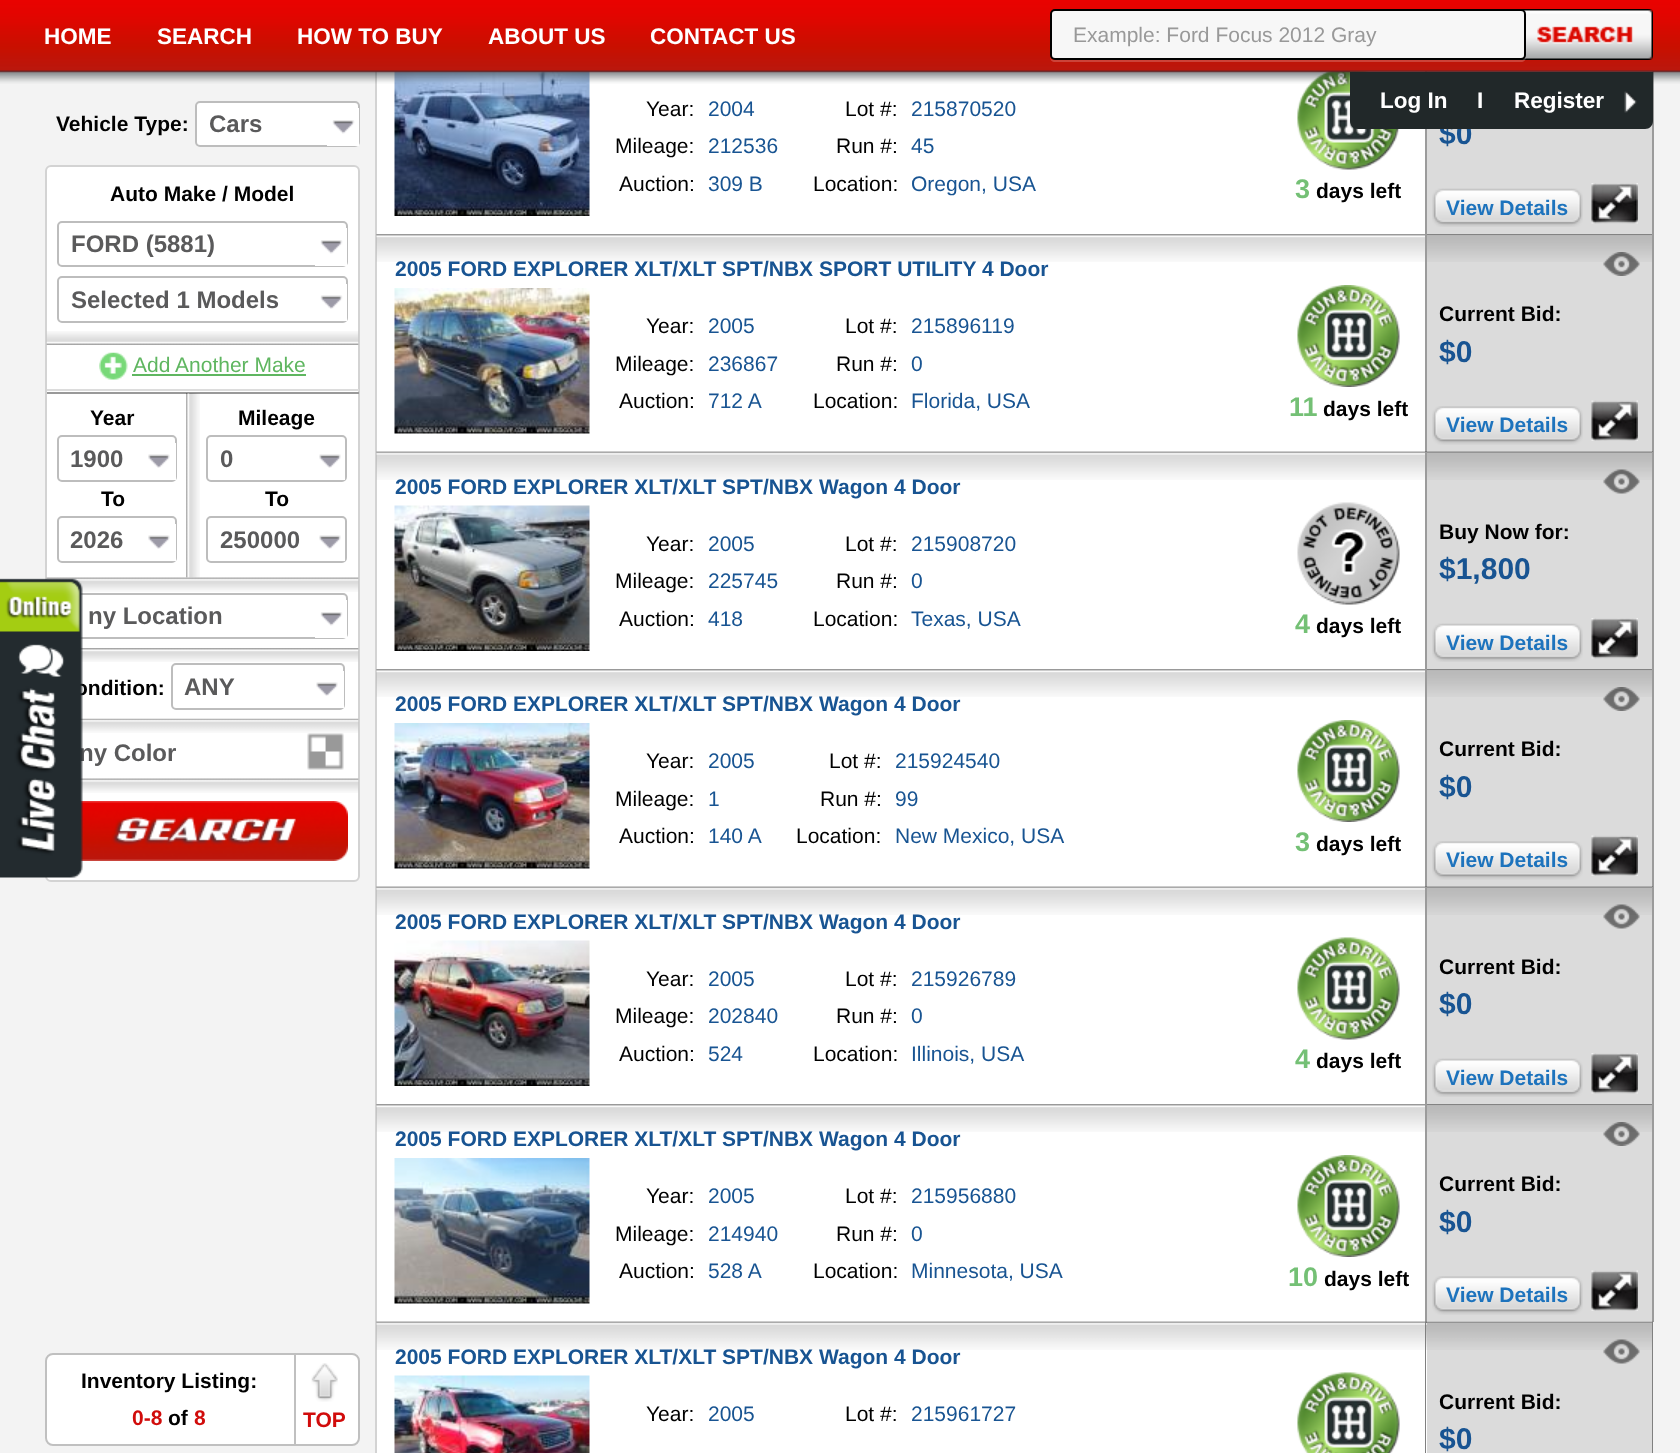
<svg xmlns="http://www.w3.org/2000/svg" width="1680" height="1453">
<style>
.a{font:bold 22.5px Liberation Sans;fill:#fff}
.b{font:21px Liberation Sans;fill:#999}
.c{font:bold 21px Liberation Sans;fill:#000}
.d{font:bold 24px Liberation Sans;fill:#5a5a5b}
.e{font:21px Liberation Sans;fill:#5fb660}
.f{font:21px Liberation Sans;fill:#000}
.g{font:21px Liberation Sans;fill:#185492}
.h{font:bold 27px Liberation Sans;fill:#74c075}
.i{font:bold 30px Liberation Sans;fill:#185492}
.j{font:bold 21px Liberation Sans;fill:#1d73bd}
.k{font:bold 21px Liberation Sans;fill:#185492}
.l{font:bold 21px Liberation Sans;fill:#d10c0b}
</style>
<rect width="100%" height="100%" fill="#f3f3f3"/>
<path fill="#fff" d="M377 71h1050v1382H377z"/>
<path fill="none" stroke="#d3d3d3" stroke-width="2" d="M376 -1h1276v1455H376z"/>
<image href="19.png" x="394" y="71" width="196" height="145"/>
<image href="20.png" x="1297" y="71" width="103" height="99"/>
<path fill="#dbdbdb" d="M1427 71h225v1382H1427z"/>
<path fill="#9b9b9b" d="M1652 71h2v381H1652z"/>
<path fill="#9b9b9b" d="M1425 71h2v381H1425z"/>
<image href="2.png" x="0" y="0" width="1680" height="84"/>
<image href="3.png" x="1521" y="9" width="132" height="51"/>
<path fill="#ffffff33" d="M1050 56v1c0 3 2 5 5 5h466c3 0 5-2 5-5v-41v-2v42c0 2-3 4-5 4h-467c-2 0-4-2-4-4z"/>
<rect fill="#f7f7f7" stroke="#000" stroke-width="2" x="1051" y="10" width="474" height="49" rx="4"/>
<rect fill="#fff" stroke="#bdbdbd" stroke-width="2" x="196" y="102" width="163" height="44" rx="4"/>
<path fill="#fff" d="M327 108h32v38H327z"/>
<image href="5.png" x="332" y="120" width="23" height="14"/>
<rect fill="#fff" stroke="#d3d3d3" stroke-width="2" x="46" y="166" width="313" height="715" rx="5"/>
<rect fill="none" stroke="#bdbdbd" stroke-width="2" x="58" y="222" width="289" height="44" rx="4"/>
<path fill="#fff" d="M315 228h32v38H315z"/>
<image href="5.png" x="320" y="240" width="23" height="14"/>
<rect fill="none" stroke="#bdbdbd" stroke-width="2" x="58" y="277" width="289" height="45" rx="4"/>
<path fill="#fff" d="M343 284h4v37H343z"/>
<image href="6.png" x="320" y="295" width="23" height="14"/>
<image href="7.png" x="46" y="331" width="313" height="14"/>
<image href="8.png" x="99" y="352" width="29" height="28"/>
<path fill="#5fb660" d="M132 374h174v2H132z"/>
<path fill="#dcdcdc" d="M47 389h312v2H47z"/>
<path fill="#999" d="M47 392h312v2H47z"/>
<rect fill="none" stroke="#bdbdbd" stroke-width="2" x="58" y="436" width="118" height="45" rx="4"/>
<path fill="#fff" d="M172 443h4v37H172z"/>
<image href="9.png" x="148" y="454" width="22" height="14"/>
<rect fill="none" stroke="#bdbdbd" stroke-width="2" x="58" y="517" width="118" height="45" rx="4"/>
<path fill="#fff" d="M172 524h4v37H172z"/>
<image href="9.png" x="148" y="535" width="22" height="14"/>
<image href="12.png" x="46" y="577" width="313" height="15"/>
<image href="10.png" x="186" y="393" width="14" height="185"/>
<rect fill="none" stroke="#bdbdbd" stroke-width="2" x="207" y="436" width="139" height="45" rx="4"/>
<path fill="#fff" d="M342 477h3v3H342z"/>
<image href="11.png" x="319" y="454" width="22" height="14"/>
<rect fill="none" stroke="#bdbdbd" stroke-width="2" x="207" y="517" width="139" height="45" rx="4"/>
<path fill="#fff" d="M342 558h3v3H342z"/>
<image href="11.png" x="319" y="535" width="22" height="14"/>
<rect fill="none" stroke="#bdbdbd" stroke-width="2" x="58" y="594" width="289" height="44" rx="4"/>
<path fill="#fff" d="M315 600h32v38H315z"/>
<image href="13.png" x="320" y="612" width="23" height="14"/>
<image href="14.png" x="80" y="648" width="279" height="14"/>
<rect fill="none" stroke="#bdbdbd" stroke-width="2" x="172" y="664" width="172" height="45" rx="4"/>
<path fill="#fff" d="M340 671h4v37H340z"/>
<image href="11.png" x="316" y="682" width="22" height="14"/>
<image href="15.png" x="80" y="718" width="279" height="15"/>
<image href="16.png" x="307" y="733" width="37" height="37"/>
<image href="17.png" x="80" y="778" width="279" height="15"/>
<image href="18.png" x="80" y="801" width="268" height="60"/>
<image href="21.png" x="1432" y="188" width="151" height="39"/>
<image href="22.png" x="1591" y="183" width="47" height="41"/>
<image href="23.png" x="376" y="234" width="1049" height="28"/>
<image href="24.png" x="394" y="288" width="196" height="146"/>
<image href="25.png" x="1297" y="285" width="103" height="102"/>
<image href="26.png" x="1427" y="234" width="225" height="28"/>
<path fill="#bababa" d="M1427 236h225v2H1427z"/>
<image href="27.png" x="1603" y="252" width="37" height="24"/>
<image href="28.png" x="1432" y="406" width="151" height="39"/>
<image href="29.png" x="1591" y="400" width="47" height="41"/>
<image href="30.png" x="376" y="451" width="1049" height="29"/>
<image href="31.png" x="394" y="505" width="196" height="146"/>
<image href="32.png" x="1297" y="502" width="103" height="103"/>
<image href="33.png" x="1425" y="451" width="228" height="29"/>
<path fill="#9b9b9b" d="M1652 452h2v435H1652z"/>
<path fill="#9b9b9b" d="M1425 452h2v435H1425z"/>
<path fill="#bababa" d="M1427 453h225v2H1427z"/>
<image href="34.png" x="1603" y="469" width="37" height="25"/>
<image href="21.png" x="1432" y="623" width="151" height="39"/>
<image href="22.png" x="1591" y="618" width="47" height="41"/>
<image href="23.png" x="376" y="669" width="1049" height="28"/>
<image href="35.png" x="394" y="723" width="196" height="146"/>
<image href="25.png" x="1297" y="720" width="103" height="102"/>
<image href="26.png" x="1427" y="669" width="225" height="28"/>
<path fill="#bababa" d="M1427 671h225v2H1427z"/>
<image href="27.png" x="1603" y="687" width="37" height="24"/>
<image href="28.png" x="1432" y="841" width="151" height="39"/>
<image href="29.png" x="1591" y="835" width="47" height="41"/>
<image href="36.png" x="376" y="886" width="1049" height="29"/>
<image href="37.png" x="394" y="940" width="196" height="146"/>
<image href="38.png" x="1297" y="937" width="103" height="103"/>
<image href="39.png" x="1425" y="886" width="228" height="29"/>
<path fill="#9b9b9b" d="M1652 887h2v435H1652z"/>
<image href="45.png" x="376" y="1321" width="1051" height="29"/>
<path fill="#9b9b9b" d="M1425 887h2v435H1425z"/>
<path fill="#bababa" d="M1427 888h225v2H1427z"/>
<image href="40.png" x="1603" y="904" width="37" height="25"/>
<image href="21.png" x="1432" y="1058" width="151" height="39"/>
<image href="22.png" x="1591" y="1053" width="47" height="41"/>
<image href="41.png" x="376" y="1104" width="1049" height="28"/>
<image href="42.png" x="394" y="1158" width="196" height="146"/>
<image href="25.png" x="1297" y="1155" width="103" height="102"/>
<image href="43.png" x="1427" y="1104" width="225" height="28"/>
<path fill="#bababa" d="M1427 1106h225v2H1427z"/>
<image href="44.png" x="1603" y="1122" width="37" height="24"/>
<image href="28.png" x="1432" y="1276" width="151" height="39"/>
<image href="29.png" x="1591" y="1270" width="47" height="41"/>
<image href="46.png" x="394" y="1375" width="196" height="78"/>
<image href="47.png" x="1297" y="1372" width="103" height="81"/>
<image href="48.png" x="1425" y="1321" width="228" height="29"/>
<path fill="#808080" fill-rule="evenodd" d="M1425 1322h228v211c0 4-3 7-7 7h-221zm1 0h226v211c0 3-3 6-6 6h-220z"/>
<path fill="#bababa" d="M1427 1323h225v2H1427z"/>
<image href="34.png" x="1603" y="1339" width="37" height="25"/>
<rect fill="#fff" stroke="#c0c0c0" stroke-width="2" x="46" y="1354" width="313" height="91" rx="7"/>
<path fill="#c0c0c0" d="M294 1355h2v91H294z"/>
<image href="49.png" x="311" y="1363" width="27" height="39"/>
<text class="a" x="44" y="44">HOME</text>
<text class="a" x="157" y="44">SEARCH</text>
<text class="a" x="297" y="44">HOW TO BUY</text>
<text class="a" x="488" y="44">ABOUT US</text>
<text class="a" x="650" y="44">CONTACT US</text>
<text class="b" x="1073" y="42">Example: Ford Focus 2012 Gray</text>
<text class="c" x="56" y="131">Vehicle Type:</text>
<text class="d" x="209" y="132">Cars</text>
<text class="c" x="110" y="201">Auto Make / Model</text>
<text class="d" x="71" y="252">FORD (5881)</text>
<text class="d" x="71" y="308">Selected 1 Models</text>
<text class="e" x="133" y="372">Add Another Make</text>
<text class="c" x="90" y="425">Year</text>
<text class="d" x="70" y="467">1900</text>
<text class="c" x="101" y="506">To</text>
<text class="d" x="70" y="548">2026</text>
<text class="c" x="238" y="425">Mileage</text>
<text class="d" x="220" y="467">0</text>
<text class="c" x="265" y="506">To</text>
<text class="d" x="220" y="548">250000</text>
<text class="d" x="88" y="624">ny Location</text>
<text class="c" x="75" y="695">ondition:</text>
<text class="d" x="184" y="695">ANY</text>
<text class="d" x="79" y="761">ny Color</text>
<image href="1.png" x="0" y="578" width="83" height="300"/>
<text class="f" x="646" y="116">Year:</text>
<text class="g" x="708" y="116">2004</text>
<text class="f" x="615" y="153">Mileage:</text>
<text class="g" x="708" y="153">212536</text>
<text class="f" x="619" y="191">Auction:</text>
<text class="g" x="708" y="191">309 B</text>
<text class="f" x="845" y="116">Lot #:</text>
<text class="g" x="911" y="116">215870520</text>
<text class="f" x="836" y="153">Run #:</text>
<text class="g" x="911" y="153">45</text>
<text class="f" x="813" y="191">Location:</text>
<text class="g" x="911" y="191">Oregon, USA</text>
<text class="h" x="1295" y="198">3</text>
<text class="c" x="1316" y="198">days left</text>
<text class="i" x="1439" y="144">$0</text>
<path fill="#212829" d="M1350 72h303v49c0 4.5-3.5 8-8 8h-287c-4.5 0-8-3.5-8-8z"/>
<image href="4.png" x="1624" y="91" width="13" height="22"/>
<text class="a" x="1514" y="108">Register</text>
<text class="a" x="1477" y="108">I</text>
<text class="a" x="1380" y="108">Log In</text>
<text class="j" x="1446" y="215">View Details</text>
<text class="k" x="395" y="276">2005 FORD EXPLORER XLT/XLT SPT/NBX SPORT UTILITY 4 Door</text>
<text class="f" x="646" y="333">Year:</text>
<text class="g" x="708" y="333">2005</text>
<text class="f" x="615" y="371">Mileage:</text>
<text class="g" x="708" y="371">236867</text>
<text class="f" x="619" y="408">Auction:</text>
<text class="g" x="708" y="408">712 A</text>
<text class="f" x="845" y="333">Lot #:</text>
<text class="g" x="911" y="333">215896119</text>
<text class="f" x="836" y="371">Run #:</text>
<text class="g" x="911" y="371">0</text>
<text class="f" x="813" y="408">Location:</text>
<text class="g" x="911" y="408">Florida, USA</text>
<text class="h" x="1289" y="416">11</text>
<text class="c" x="1323" y="416">days left</text>
<text class="c" x="1439" y="321">Current Bid:</text>
<text class="i" x="1439" y="362">$0</text>
<text class="j" x="1446" y="432">View Details</text>
<text class="k" x="395" y="494">2005 FORD EXPLORER XLT/XLT SPT/NBX Wagon 4 Door</text>
<text class="f" x="646" y="551">Year:</text>
<text class="g" x="708" y="551">2005</text>
<text class="f" x="615" y="588">Mileage:</text>
<text class="g" x="708" y="588">225745</text>
<text class="f" x="619" y="626">Auction:</text>
<text class="g" x="708" y="626">418</text>
<text class="f" x="845" y="551">Lot #:</text>
<text class="g" x="911" y="551">215908720</text>
<text class="f" x="836" y="588">Run #:</text>
<text class="g" x="911" y="588">0</text>
<text class="f" x="813" y="626">Location:</text>
<text class="g" x="911" y="626">Texas, USA</text>
<text class="h" x="1295" y="633">4</text>
<text class="c" x="1316" y="633">days left</text>
<text class="c" x="1439" y="539">Buy Now for:</text>
<text class="i" x="1439" y="579">$1,800</text>
<text class="j" x="1446" y="650">View Details</text>
<text class="k" x="395" y="711">2005 FORD EXPLORER XLT/XLT SPT/NBX Wagon 4 Door</text>
<text class="f" x="646" y="768">Year:</text>
<text class="g" x="708" y="768">2005</text>
<text class="f" x="615" y="806">Mileage:</text>
<text class="g" x="708" y="806">1</text>
<text class="f" x="619" y="843">Auction:</text>
<text class="g" x="708" y="843">140 A</text>
<text class="f" x="829" y="768">Lot #:</text>
<text class="g" x="895" y="768">215924540</text>
<text class="f" x="820" y="806">Run #:</text>
<text class="g" x="895" y="806">99</text>
<text class="f" x="796" y="843">Location:</text>
<text class="g" x="895" y="843">New Mexico, USA</text>
<text class="h" x="1295" y="851">3</text>
<text class="c" x="1316" y="851">days left</text>
<text class="c" x="1439" y="756">Current Bid:</text>
<text class="i" x="1439" y="797">$0</text>
<text class="j" x="1446" y="867">View Details</text>
<text class="k" x="395" y="929">2005 FORD EXPLORER XLT/XLT SPT/NBX Wagon 4 Door</text>
<text class="f" x="646" y="986">Year:</text>
<text class="g" x="708" y="986">2005</text>
<text class="f" x="615" y="1023">Mileage:</text>
<text class="g" x="708" y="1023">202840</text>
<text class="f" x="619" y="1061">Auction:</text>
<text class="g" x="708" y="1061">524</text>
<text class="f" x="845" y="986">Lot #:</text>
<text class="g" x="911" y="986">215926789</text>
<text class="f" x="836" y="1023">Run #:</text>
<text class="g" x="911" y="1023">0</text>
<text class="f" x="813" y="1061">Location:</text>
<text class="g" x="911" y="1061">Illinois, USA</text>
<text class="h" x="1295" y="1068">4</text>
<text class="c" x="1316" y="1068">days left</text>
<text class="c" x="1439" y="974">Current Bid:</text>
<text class="i" x="1439" y="1014">$0</text>
<text class="j" x="1446" y="1085">View Details</text>
<text class="k" x="395" y="1146">2005 FORD EXPLORER XLT/XLT SPT/NBX Wagon 4 Door</text>
<text class="f" x="646" y="1203">Year:</text>
<text class="g" x="708" y="1203">2005</text>
<text class="f" x="615" y="1241">Mileage:</text>
<text class="g" x="708" y="1241">214940</text>
<text class="f" x="619" y="1278">Auction:</text>
<text class="g" x="708" y="1278">528 A</text>
<text class="f" x="845" y="1203">Lot #:</text>
<text class="g" x="911" y="1203">215956880</text>
<text class="f" x="836" y="1241">Run #:</text>
<text class="g" x="911" y="1241">0</text>
<text class="f" x="813" y="1278">Location:</text>
<text class="g" x="911" y="1278">Minnesota, USA</text>
<text class="h" x="1288" y="1286">10</text>
<text class="c" x="1324" y="1286">days left</text>
<text class="c" x="1439" y="1191">Current Bid:</text>
<text class="i" x="1439" y="1232">$0</text>
<text class="j" x="1446" y="1302">View Details</text>
<text class="k" x="395" y="1364">2005 FORD EXPLORER XLT/XLT SPT/NBX Wagon 4 Door</text>
<text class="f" x="646" y="1421">Year:</text>
<text class="g" x="708" y="1421">2005</text>
<text class="f" x="845" y="1421">Lot #:</text>
<text class="g" x="911" y="1421">215961727</text>
<text class="c" x="1439" y="1409">Current Bid:</text>
<text class="i" x="1439" y="1449">$0</text>
<text class="c" x="81" y="1388">Inventory Listing:</text>
<text class="l" x="132" y="1425">0-8</text>
<text class="c" x="168" y="1425">of</text>
<text class="l" x="194" y="1425">8</text>
<text class="l" x="303" y="1427">TOP</text>
</svg>
